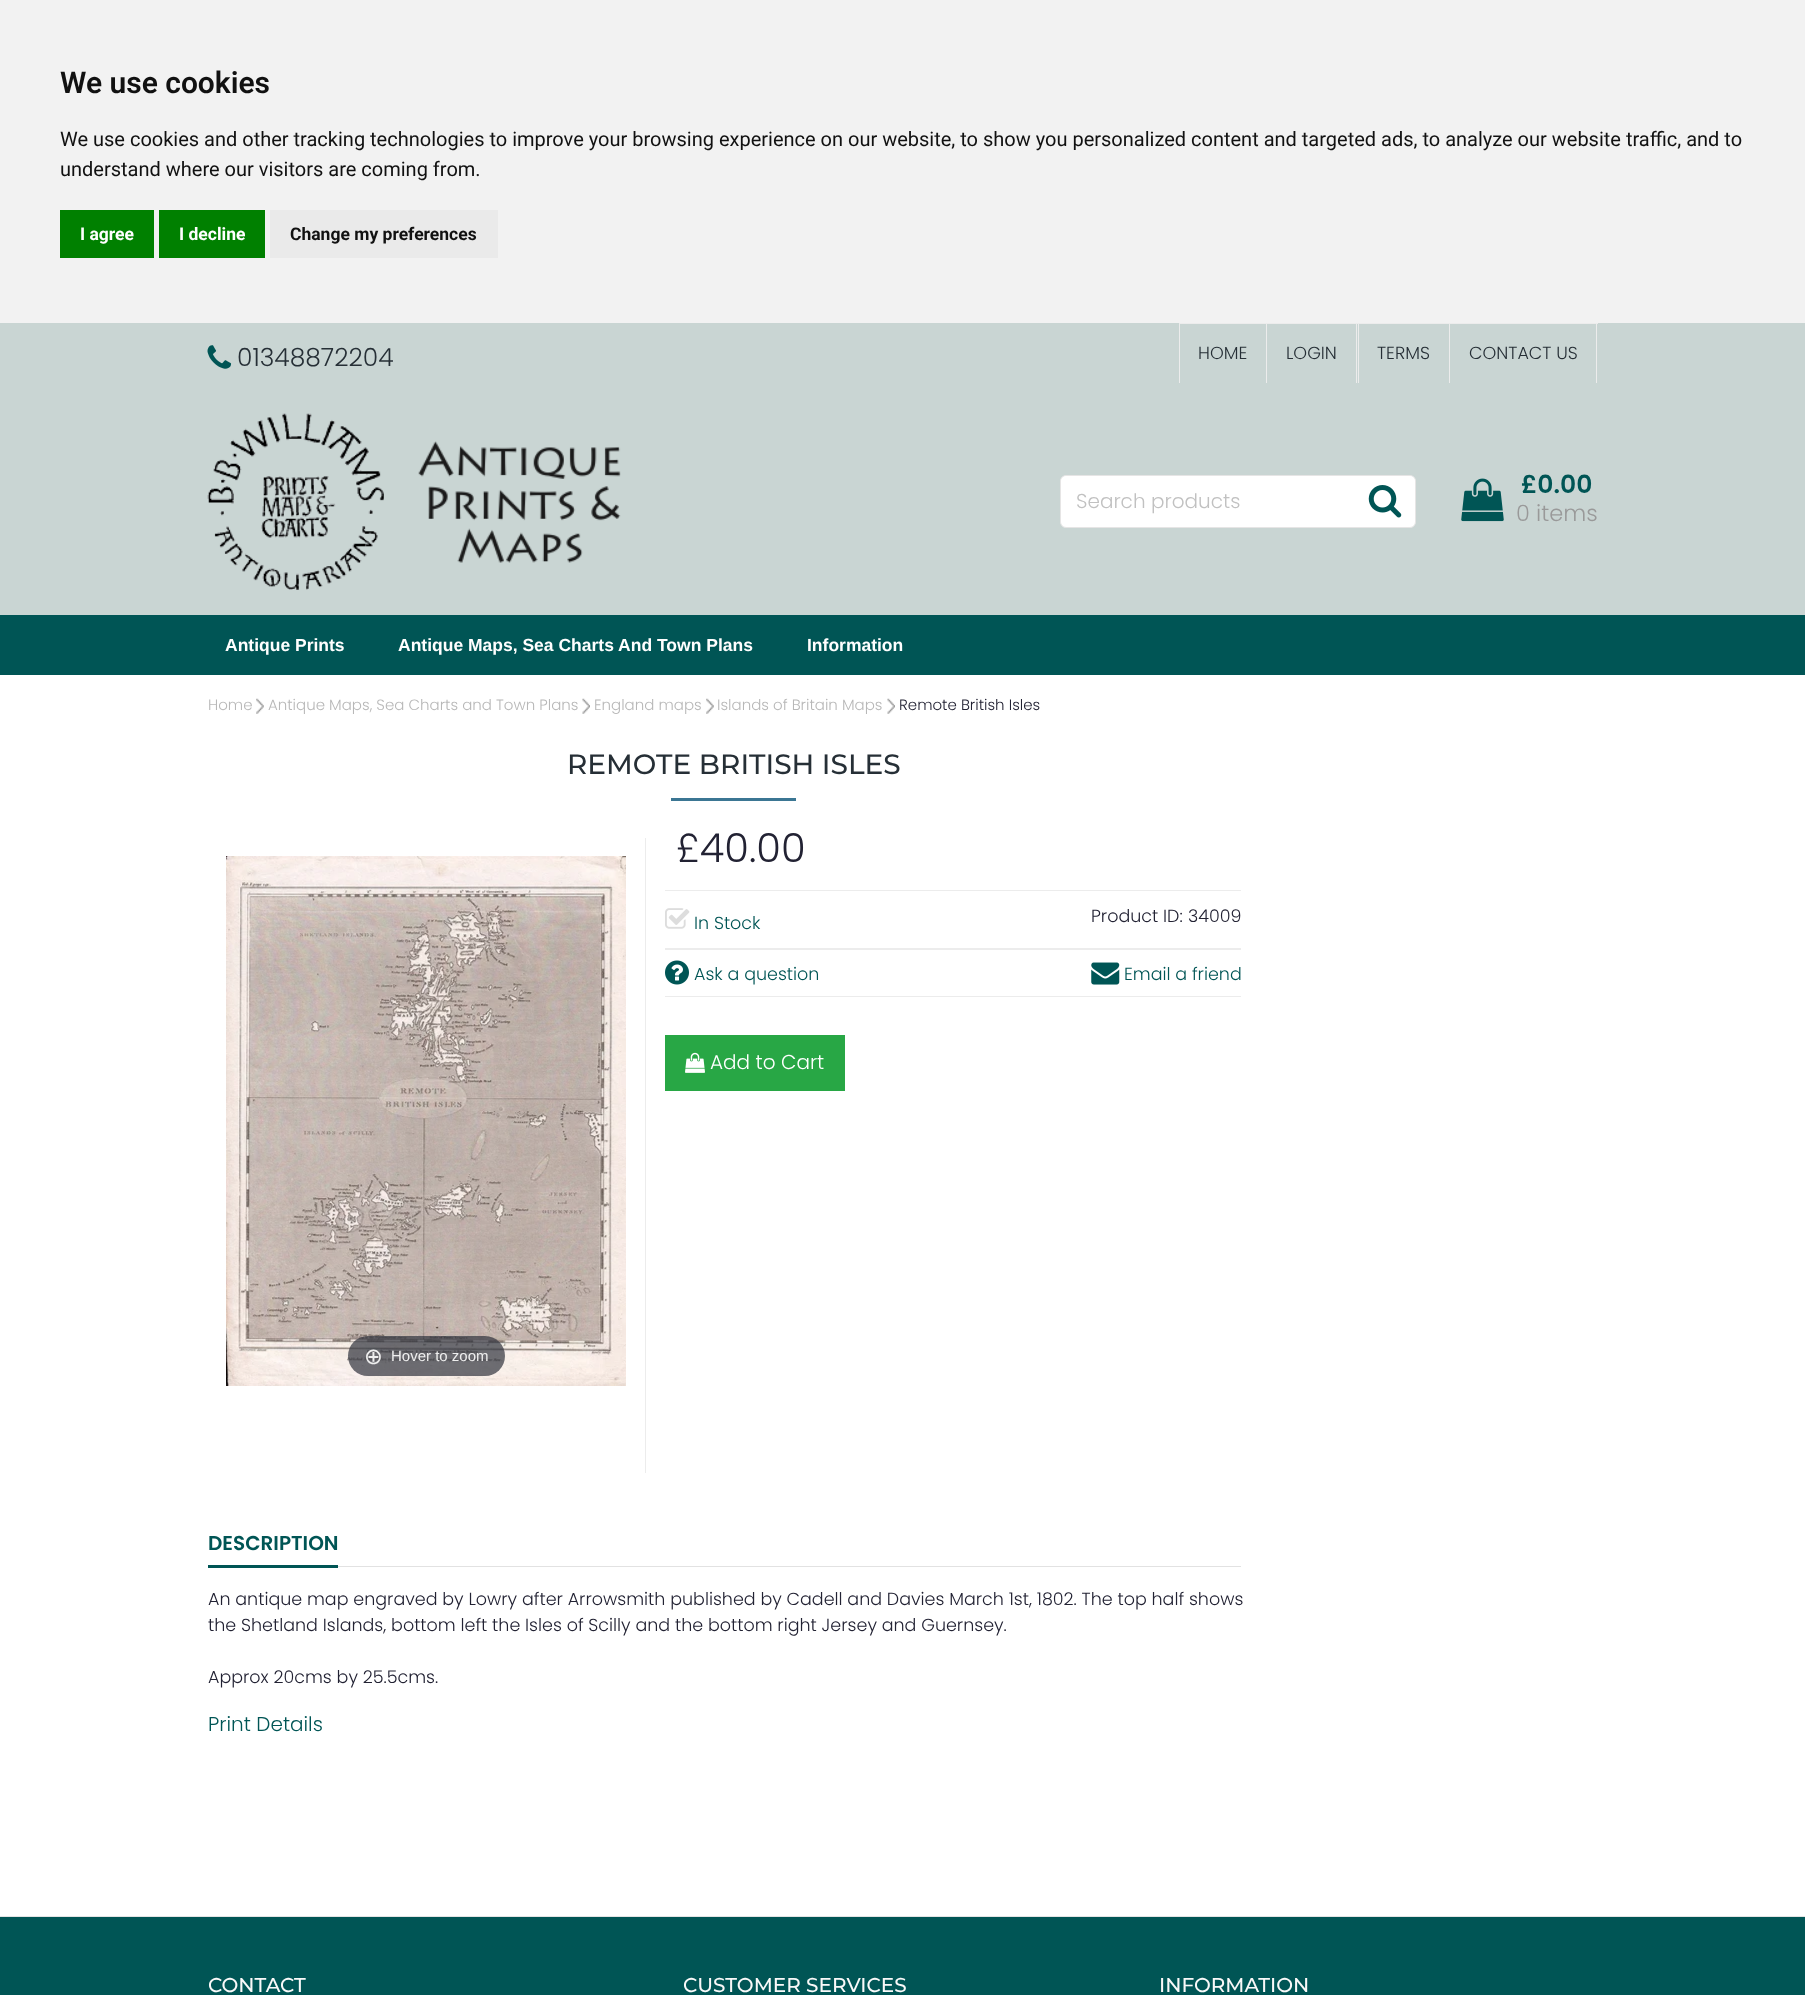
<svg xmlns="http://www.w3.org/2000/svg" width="1805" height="1995">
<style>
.a{font:600 30px Roboto;fill:#111}
.b{font:20px Roboto;fill:#111}
.c{font:bold 17.5px Roboto;fill:#fff}
.d{font:bold 17.5px Roboto;fill:#111}
.e{font:300 25px Poppins;fill:#262f36}
.f{font:300 17.5px Poppins;fill:#262f36}
.g{font:300 20px Poppins;fill:#c1c1c1}
.h{font:600 25px Poppins;fill:#055}
.i{font:300 22.5px Poppins;fill:#999}
.j{font:bold 17.5px Liberation Sans;fill:#fff}
.k{font:300 15px Poppins;fill:#b8b8b8}
.l{font:300 15px Poppins;fill:#223}
.m{font:500 28px Montserrat;fill:#262f36}
.n{font:300 40px Poppins;fill:#223}
.o{font:300 17.5px Poppins;fill:#055}
.p{font:300 17.5px Poppins;fill:#223}
.q{font:300 20px Poppins;fill:#fff}
.r{font:22.5px DejaVu Sans;fill:#eee}
.s{font:15px Liberation Sans;fill:#eee}
.t{font:600 20px Poppins;fill:#055}
.u{font:300 20px Poppins;fill:#055}
.v{font:500 20px Montserrat;fill:#f9f9f9}
</style>
<rect width="100%" height="100%" fill="#fff"/>
<path fill="#f2f2f2" d="M0 0h1805v323H0z"/>
<path fill="#008000" d="M60 210h94v48H60z"/>
<path fill="#008000" d="M159 210h106v48H159z"/>
<path fill="#eaeaea" d="M270 210h228v48H270z"/>
<path fill="#c9d5d3" d="M0 323h1805v292H0z"/>
<image href="1.png" x="207" y="345" width="25" height="24"/>
<path fill="#ececec" d="M1179 323h419v1H1179z"/>
<path fill="#ececec" d="M1179 323h1v60H1179z"/>
<path fill="#ececec" d="M1356 323h1v60H1356z"/>
<path fill="#ececec" d="M1266 323h1v60H1266z"/>
<path fill="#ececec" d="M1358 323h1v60H1358z"/>
<path fill="#ececec" d="M1596 323h1v60H1596z"/>
<path fill="#ececec" d="M1449 323h1v60H1449z"/>
<image href="2.png" x="207" y="413" width="414" height="177"/>
<rect fill="#fff" stroke="#e6e5e5" x="1060.5" y="475.5" width="355" height="52" rx="5.5"/>
<rect fill="#fff" x="1061" y="476" width="293" height="50" rx="6"/>
<rect fill="#fff" x="1354" y="476" width="61" height="48" rx="6"/>
<image href="3.png" x="1368" y="485" width="34" height="33"/>
<image href="4.png" x="1461" y="478" width="43" height="44"/>
<path fill="#055" d="M0 615h1805v60H0z"/>
<image href="5.png" x="256" y="698" width="8" height="16"/>
<image href="6.png" x="582" y="698" width="8" height="16"/>
<image href="7.png" x="706" y="698" width="8" height="16"/>
<image href="8.png" x="887" y="698" width="8" height="16"/>
<path fill="#3b7693" d="M671 798h125v3H671z"/>
<path fill="#ececec" d="M665 890h576v1H665z"/>
<path fill="#ececec" d="M665 948h576v2H665z"/>
<image href="9.png" x="665" y="908" width="25" height="21"/>
<path fill="#ececec" d="M665 996h576v1H665z"/>
<image href="10.png" x="665" y="960" width="24" height="25"/>
<image href="11.png" x="1091" y="962" width="29" height="23"/>
<path fill="#28a745" d="M665 1035h180v56H665z"/>
<image href="12.png" x="685" y="1052" width="20" height="21"/>
<path fill="#ececec" d="M645 838h1v635H645z"/>
<image href="13.png" x="226" y="856" width="400" height="530"/>
<rect fill="#31333db3" x="348" y="1336" width="157" height="40" rx="20"/>
<path fill="#e2e2e2" d="M338 1566h903v1H338z"/>
<path fill="#055" d="M208 1565h130v3H208z"/>
<path fill="#055" d="M0 1917h1805v78H0z"/>
<path fill="#e4e4e4" d="M0 1916h1805v1H0z"/>
<text class="a" x="60" y="93">We use cookies</text>
<text class="b" x="60" y="146">We use cookies and other tracking technologies to improve your browsing experience on our website, to show you personalized content and targeted ads, to analyze our website traffic, and to</text>
<text class="b" x="60" y="176">understand where our visitors are coming from.</text>
<text class="c" x="80" y="240">I agree</text>
<text class="c" x="179" y="240">I decline</text>
<text class="d" x="290" y="240">Change my preferences</text>
<text class="e" x="237" y="366">01348872204</text>
<text class="f" x="1198" y="359">HOME</text>
<text class="f" x="1286" y="359">LOGIN</text>
<text class="f" x="1377" y="359">TERMS</text>
<text class="f" x="1469" y="359">CONTACT US</text>
<text class="g" x="1076" y="508">Search products</text>
<text class="h" x="1521" y="493">£0.00</text>
<text class="i" x="1516" y="521">0 items</text>
<text class="j" x="225" y="651">Antique Prints</text>
<text class="j" x="398" y="651">Antique Maps, Sea Charts And Town Plans</text>
<text class="j" x="807" y="651">Information</text>
<text class="k" x="208" y="710">Home</text>
<text class="k" x="268" y="710">Antique Maps, Sea Charts and Town Plans</text>
<text class="k" x="594" y="710">England maps</text>
<text class="k" x="717" y="710">Islands of Britain Maps</text>
<text class="l" x="899" y="710">Remote British Isles</text>
<text class="m" x="567" y="774">REMOTE BRITISH ISLES</text>
<text class="n" x="676" y="862">£40.00</text>
<text class="o" x="694" y="929">In Stock</text>
<text class="p" x="1091" y="922">Product ID:</text>
<text class="p" x="1188" y="922">34009</text>
<text class="o" x="694" y="980">Ask a question</text>
<text class="o" x="1124" y="980">Email a friend</text>
<text class="q" x="710" y="1069">Add to Cart</text>
<text class="r" x="364" y="1364">⊕</text>
<text class="s" x="391" y="1361">Hover to zoom</text>
<text class="t" x="208" y="1550">DESCRIPTION</text>
<text class="p" x="208" y="1605">An antique map engraved by Lowry after Arrowsmith published by Cadell and Davies March 1st, 1802. The top half shows</text>
<text class="p" x="208" y="1631">the Shetland Islands, bottom left the Isles of Scilly and the bottom right Jersey and Guernsey.</text>
<text class="p" x="208" y="1683">Approx 20cms by 25.5cms.</text>
<text class="u" x="208" y="1731">Print Details</text>
<text class="v" x="208" y="1992">CONTACT</text>
<text class="v" x="683" y="1992">CUSTOMER SERVICES</text>
<text class="v" x="1159" y="1992">INFORMATION</text>
</svg>
